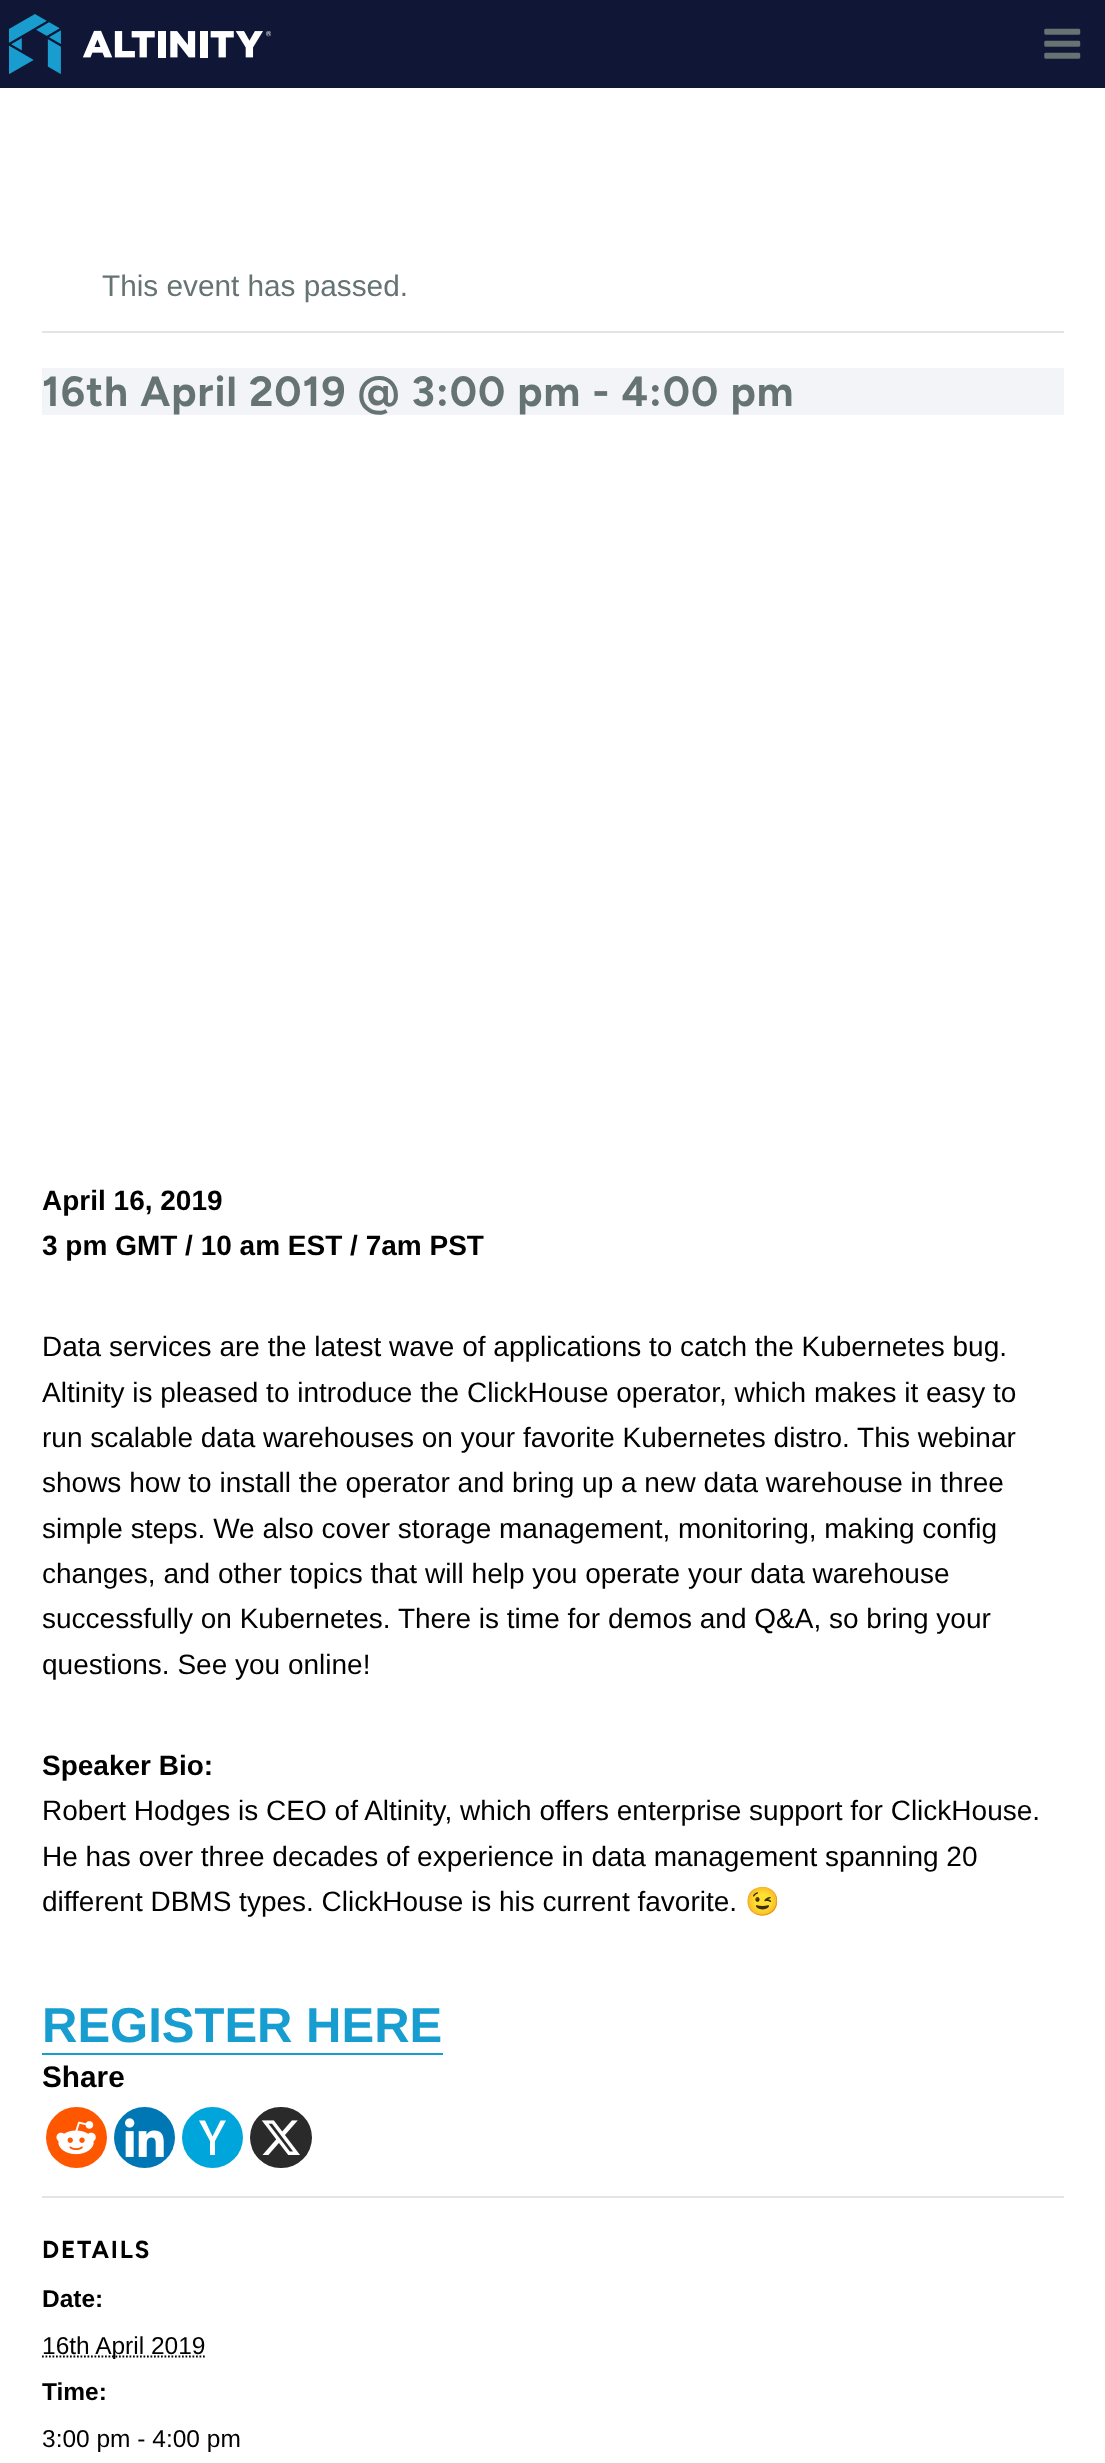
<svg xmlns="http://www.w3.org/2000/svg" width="1105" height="2463">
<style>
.a{font:29.75px Arimo;fill:#667373}
.b{font:bold 42px Figtree;letter-spacing:1.05px;fill:#667373}
.c{font:bold 28px Liberation Sans;fill:#000}
.d{font:28px Liberation Sans;fill:#000}
.e{font:28px Noto Color Emoji;fill:#000}
.f{font:bold 49px Liberation Sans;fill:#189dd0}
.g{font:bold 29.75px Liberation Sans;fill:#000}
.h{font:bold 24.5px Figtree;letter-spacing:1.75px;fill:#000}
.i{font:bold 24.5px Liberation Sans;fill:#000}
.j{font:24.5px Liberation Sans;fill:#000}
</style>
<rect width="100%" height="100%" fill="#fff"/>
<path fill="#0f1636" d="M0 0h1105v88H0z"/>
<image href="1.png" x="9" y="14" width="262" height="60"/>
<image href="2.png" x="1044" y="28" width="37" height="31"/>
<path fill="#e4e4e4" d="M42 331h1022v2H42z"/>
<path fill="#f2f4f7" d="M42 368h1022v47H42z"/>
<path fill="#189dd0" d="M42 2053h401v2H42z"/>
<circle fill="#ff5700" cx="76.5" cy="2137.5" r="30.5"/>
<image href="3.png" x="56" y="2121" width="40" height="34"/>
<circle fill="#0077b5" cx="144.5" cy="2137.5" r="30.5"/>
<image href="4.png" x="125" y="2118" width="39" height="39"/>
<circle fill="#00a6db" cx="212.5" cy="2137.5" r="30.5"/>
<path fill="#fff" d="M215 2141v14h-5v-14l-11-20.5h6l7.5 16l8-16h5.5z"/>
<rect fill="#2a2a2a" x="250" y="2107" width="62" height="61" rx="30.5"/>
<image href="5.png" x="261" y="2120" width="39" height="35"/>
<path fill="#e4e4e4" d="M42 2196h1022v2H42z"/>
<path fill="none" stroke="#000" stroke-width="1.8" stroke-dasharray="1.75 1.75" d="M42 2356.5h163.5"/>
<text class="a" x="102" y="296">This event has passed.</text>
<text class="b" x="42" y="406">16th April 2019 @ 3:00 pm - 4:00 pm</text>
<text class="c" x="42" y="1210">April 16, 2019</text>
<text class="c" x="42" y="1255">3 pm GMT / 10 am EST / 7am PST</text>
<text class="d" x="42" y="1356">Data services are the latest wave of applications to catch the Kubernetes bug.</text>
<text class="d" x="42" y="1402">Altinity is pleased to introduce the ClickHouse operator, which makes it easy to</text>
<text class="d" x="42" y="1447">run scalable data warehouses on your favorite Kubernetes distro. This webinar</text>
<text class="d" x="42" y="1492">shows how to install the operator and bring up a new data warehouse in three</text>
<text class="d" x="42" y="1538">simple steps. We also cover storage management, monitoring, making config</text>
<text class="d" x="42" y="1583">changes, and other topics that will help you operate your data warehouse</text>
<text class="d" x="42" y="1628">successfully on Kubernetes. There is time for demos and Q&amp;A, so bring your</text>
<text class="d" x="42" y="1674">questions. See you online!</text>
<text class="c" x="42" y="1775">Speaker Bio:</text>
<text class="d" x="42" y="1820">Robert Hodges is CEO of Altinity, which offers enterprise support for ClickHouse.</text>
<text class="d" x="42" y="1866">He has over three decades of experience in data management spanning 20</text>
<text class="d" x="42" y="1911">different DBMS types. ClickHouse is his current favorite.</text>
<text class="e" x="745" y="1911">😉</text>
<text class="f" x="42" y="2042">REGISTER HERE</text>
<text class="g" x="42" y="2087">Share</text>
<text class="h" x="42" y="2258">DETAILS</text>
<text class="i" x="42" y="2307">Date:</text>
<text class="j" x="42" y="2354">16th April 2019</text>
<text class="i" x="42" y="2400">Time:</text>
<text class="j" x="42" y="2447">3:00 pm - 4:00 pm</text>
</svg>
